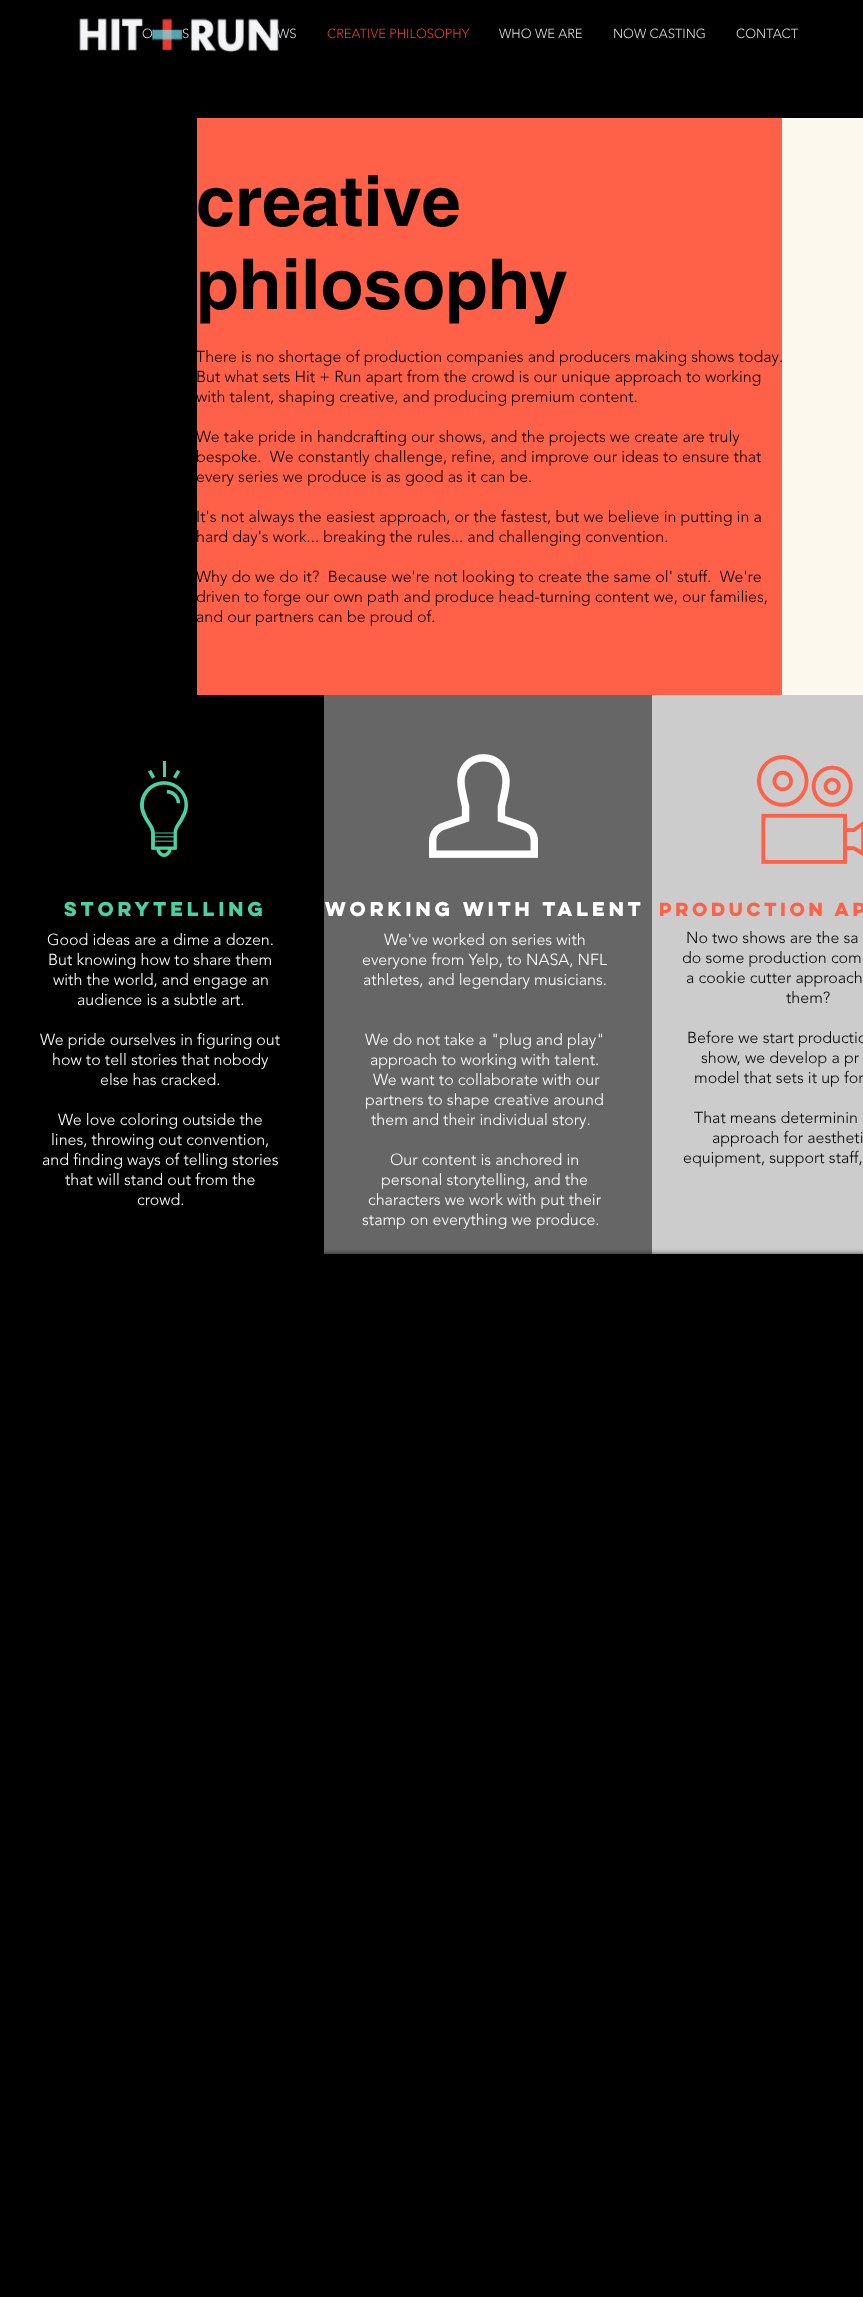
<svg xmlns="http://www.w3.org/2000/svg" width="863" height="2297">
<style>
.a{font:300 13px 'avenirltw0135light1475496';fill:#dbd9d7}
.b{font:300 13px 'avenirltw0135light1475496';fill:#e73e32}
.c{font:bold 70px helvetica;fill:#000}
.d{font:300 16px 'avenirltw0135light1475496';fill:#000}
.e{font:bold 18px 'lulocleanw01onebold';fill:#4bd1a0}
.f{font:300 16px 'avenirltw0135light1475496';fill:#fff}
.g{font:bold 18px 'lulocleanw01onebold';fill:#fff}
.h{font:bold 17px 'lulocleanw01onebold';fill:#fe6148}
</style>
<defs>
<clipPath id="clip1"><path d="M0 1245h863v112h-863zm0 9h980v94h-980z" clip-rule="evenodd"/></clipPath>
</defs>
<rect width="100%" height="100%" fill="#000"/>
<path fill="#fe6148" d="M197 118h585v577H197z"/>
<path fill="#fcf8ed" d="M782 118h81v577H782z"/>
<image href="2.png" x="140" y="761" width="48" height="96"/>
<path fill="#666" d="M324 695h328v559H324z"/>
<image href="3.png" x="429" y="754" width="109" height="104"/>
<path fill="#ccc" d="M652 695h211v559H652z"/>
<image href="4.png" x="757" y="755" width="106" height="109"/>
<g clip-path="url(#clip1)">
<path fill="#000000b3" filter="blur(2.5px)" d="M0 1254h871v94H0z"/>
</g>
<text class="a" x="142" y="38">O</text>
<text class="a" x="182" y="38">S</text>
<text class="a" x="277" y="38">WS</text>
<image href="1.png" x="79" y="18" width="200" height="35"/>
<text class="b" x="327" y="38">CREATIVE PHILOSOPHY</text>
<text class="a" x="499" y="38">WHO WE ARE</text>
<text class="a" x="613" y="38">NOW CASTING</text>
<text class="a" x="736" y="38">CONTACT</text>
<text class="c" x="196" y="226">creative</text>
<text class="c" x="196" y="309">philosophy</text>
<text class="d" x="196" y="362">There is no shortage of production companies and producers making shows today.</text>
<text class="d" x="196" y="382">But what sets Hit + Run apart from the crowd is our unique approach to working</text>
<text class="d" x="196" y="402">with talent, shaping creative, and producing premium content.</text>
<text class="d" x="196" y="442">We take pride in handcrafting our shows, and the projects we create are truly</text>
<text class="d" xml:space="preserve" x="196" y="462">bespoke.  We constantly challenge, refine, and improve our ideas to ensure that</text>
<text class="d" x="196" y="482">every series we produce is as good as it can be.</text>
<text class="d" x="196" y="522">It's not always the easiest approach, or the fastest, but we believe in putting in a</text>
<text class="d" x="196" y="542">hard day's work... breaking the rules... and challenging convention.</text>
<text class="d" xml:space="preserve" x="196" y="582">Why do we do it?  Because we're not looking to create the same ol' stuff.  We're</text>
<text class="d" x="196" y="602">driven to forge our own path and produce head-turning content we, our families,</text>
<text class="d" x="196" y="622">and our partners can be proud of.</text>
<text class="e" x="64" y="916">Storytelling</text>
<text class="f" x="47" y="945">Good ideas are a dime a dozen.</text>
<text class="f" x="48" y="965">But knowing how to share them</text>
<text class="f" x="53" y="985">with the world, and engage an</text>
<text class="f" x="77" y="1005">audience is a subtle art.</text>
<text class="f" x="40" y="1045">We pride ourselves in figuring out</text>
<text class="f" x="52" y="1065">how to tell stories that nobody</text>
<text class="f" x="100" y="1085">else has cracked.</text>
<text class="f" x="58" y="1125">We love coloring outside the</text>
<text class="f" x="51" y="1145">lines, throwing out convention,</text>
<text class="f" x="42" y="1165">and finding ways of telling stories</text>
<text class="f" x="65" y="1185">that will stand out from the</text>
<text class="f" x="137" y="1205">crowd.</text>
<text class="g" x="325" y="916">WORKING WITH TALENT</text>
<text class="f" x="384" y="945">We've worked on series with</text>
<text class="f" x="362" y="965">everyone from Yelp, to NASA, NFL</text>
<text class="f" x="363" y="985">athletes, and legendary musicians.</text>
<text class="f" x="365" y="1045">We do not take a "plug and play"</text>
<text class="f" x="370" y="1065">approach to working with talent.</text>
<text class="f" x="373" y="1085">We want to collaborate with our</text>
<text class="f" x="365" y="1105">partners to shape creative around</text>
<text class="f" x="371" y="1125">them and their individual story.</text>
<text class="f" x="390" y="1165">Our content is anchored in</text>
<text class="f" x="381" y="1185">personal storytelling, and the</text>
<text class="f" x="368" y="1205">characters we work with put their</text>
<text class="f" x="362" y="1225">stamp on everything we produce.</text>
<text class="h" x="659" y="916">PRODUCTION AP</text>
<text class="d" x="686" y="943">No two shows are the sa</text>
<text class="d" x="682" y="963">do some production com</text>
<text class="d" x="686" y="983">a cookie cutter approach</text>
<text class="d" x="786" y="1003">them?</text>
<text class="d" x="687" y="1043">Before we start productio</text>
<text class="d" x="701" y="1063">show, we develop a pr</text>
<text class="d" x="694" y="1083">model that sets it up for</text>
<text class="d" x="694" y="1123">That means determinin</text>
<text class="d" x="712" y="1143">approach for aestheti</text>
<text class="d" x="683" y="1163">equipment, support staff,</text>
</svg>
